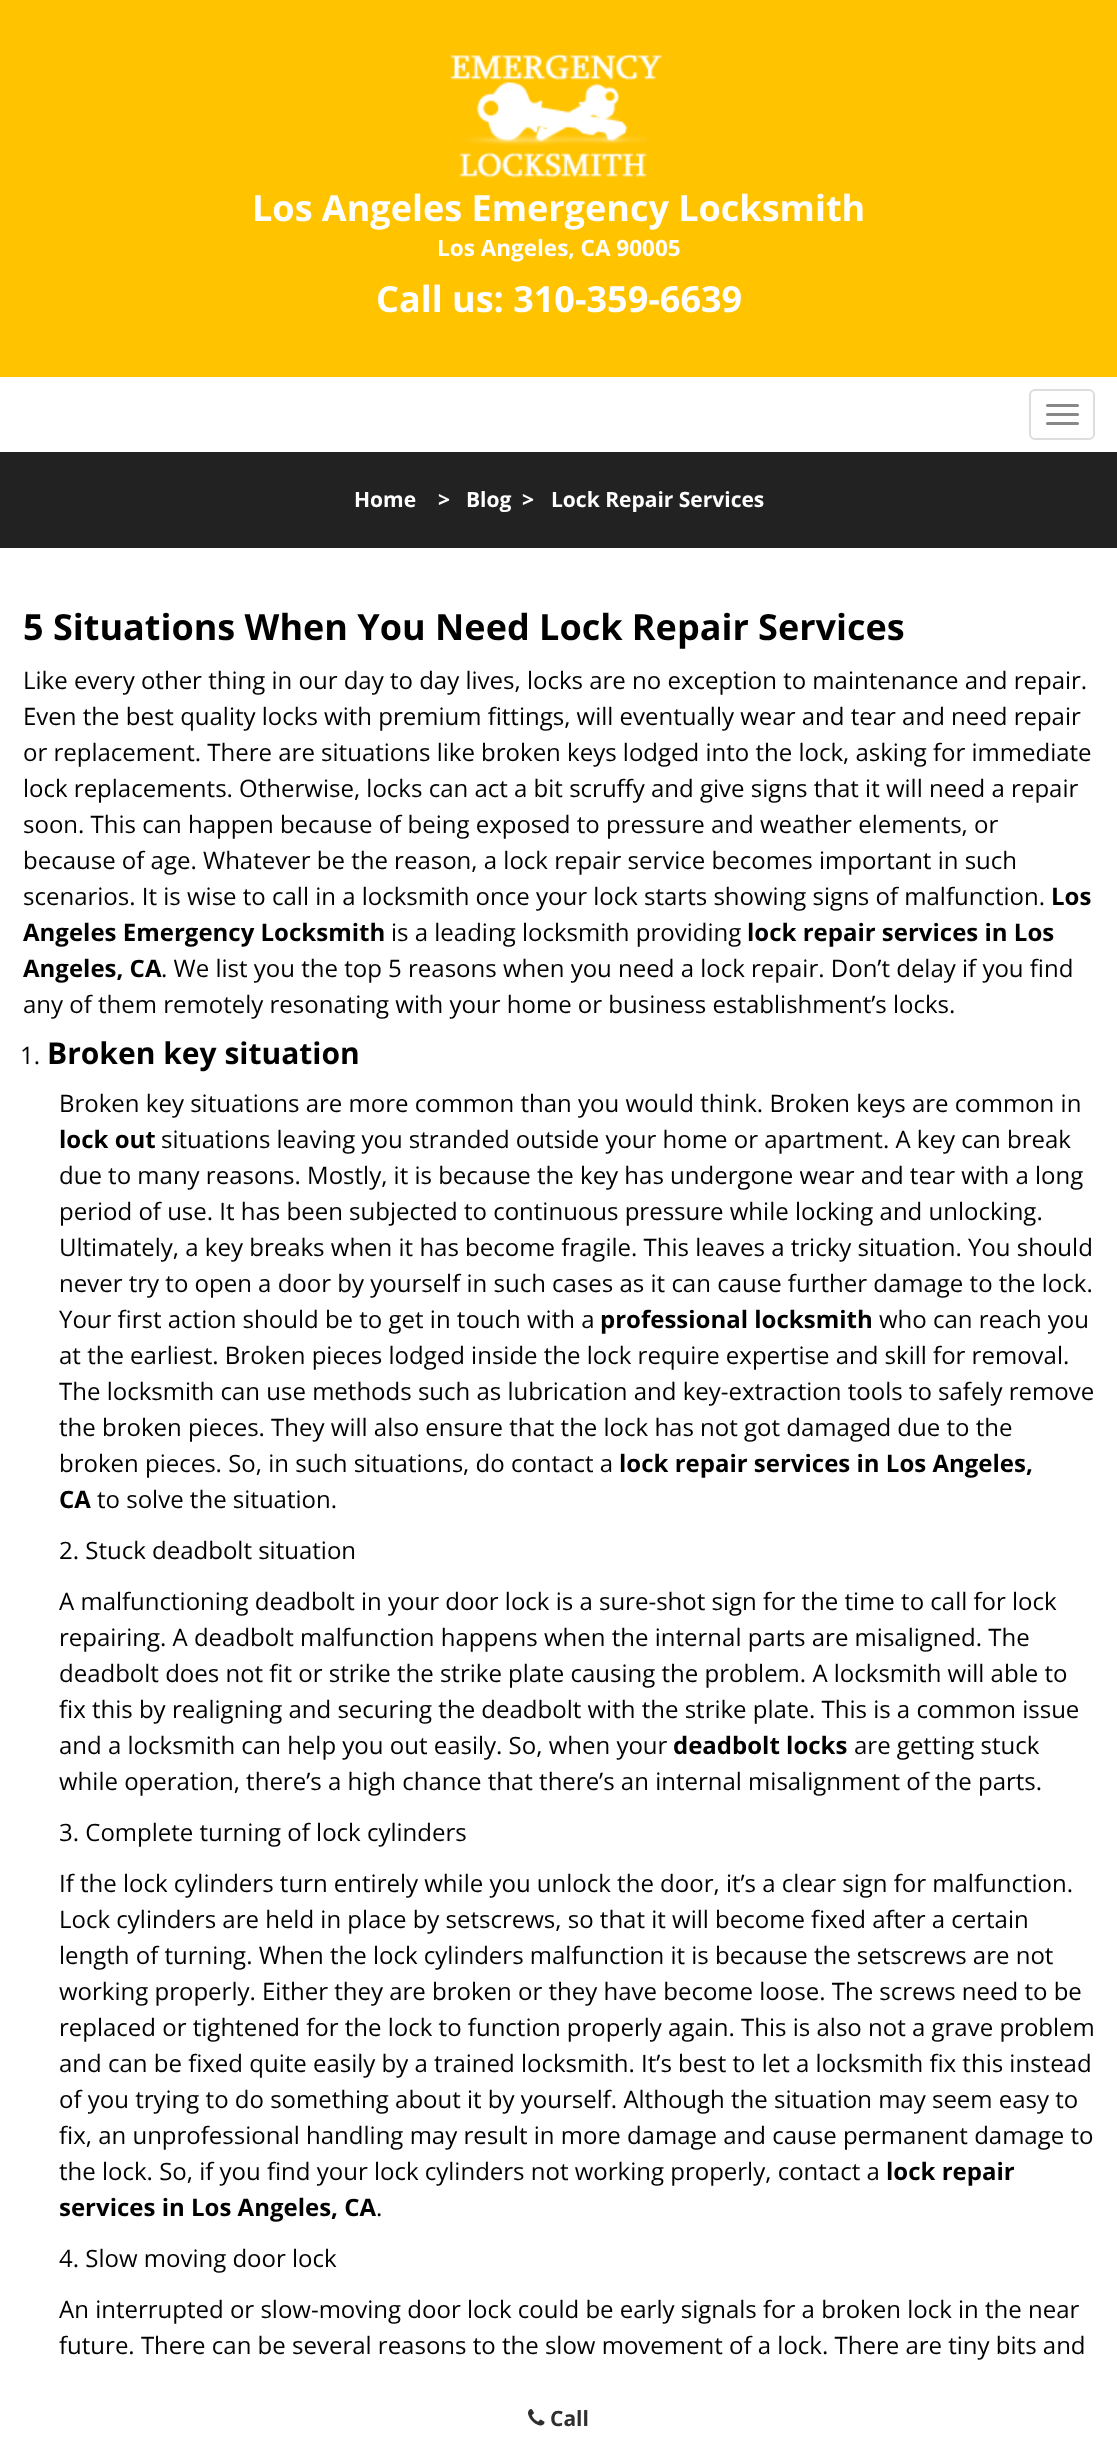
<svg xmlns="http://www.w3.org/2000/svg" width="1117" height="2461">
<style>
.a{font:bold 36px Open Sans;fill:#fff}
.b{font:bold 22.5px Open Sans;fill:#fff}
.c{font:bold 21px Open Sans;fill:#fff}
.d{font:bold 36px Open Sans;fill:#000}
.e{font:24px Open Sans;fill:#000}
.f{font:bold 24px Open Sans;fill:#000}
.g{font:bold 30px Open Sans;fill:#000}
.h{font:bold 21px Open Sans;fill:#2e2e2e}
</style>
<rect width="100%" height="100%" fill="#fff"/>
<path fill="#ffc300" d="M0 0h1117v377H0z"/>
<image href="1.png" x="450" y="53" width="212" height="125"/>
<rect fill="none" stroke="#ddd" stroke-width="2" x="1030" y="390" width="64" height="49" rx="5"/>
<rect fill="#888" x="1046" y="404" width="33" height="3" rx="1.5"/>
<rect fill="#888" x="1046" y="413" width="33" height="3" rx="1.5"/>
<rect fill="#888" x="1046" y="422" width="33" height="3" rx="1.5"/>
<path fill="#222" d="M0 452h1117v96H0z"/>
<image href="2.png" x="528" y="2409" width="17" height="17"/>
<text class="a" x="252" y="221">Los Angeles Emergency Locksmith</text>
<text class="b" x="437" y="256">Los Angeles, CA 90005</text>
<text class="a" x="376" y="312">Call us: 310-359-6639</text>
<text class="c" x="354" y="507">Home</text>
<text class="c" x="438" y="507">&gt;</text>
<text class="c" x="466" y="507">Blog</text>
<text class="c" x="522" y="507">&gt;</text>
<text class="c" x="551" y="507">Lock Repair Services</text>
<text class="d" x="23" y="640">5 Situations When You Need Lock Repair Services</text>
<text class="e" x="23" y="689">Like every other thing in our day to day lives, locks are no exception to maintenance and repair.</text>
<text class="e" x="23" y="725">Even the best quality locks with premium fittings, will eventually wear and tear and need repair</text>
<text class="e" x="23" y="761">or replacement. There are situations like broken keys lodged into the lock, asking for immediate</text>
<text class="e" x="23" y="797">lock replacements. Otherwise, locks can act a bit scruffy and give signs that it will need a repair</text>
<text class="e" x="23" y="833">soon. This can happen because of being exposed to pressure and weather elements, or</text>
<text class="e" x="23" y="869">because of age. Whatever be the reason, a lock repair service becomes important in such</text>
<text class="e" x="23" y="905">scenarios. It is wise to call in a locksmith once your lock starts showing signs of malfunction.</text>
<text class="f" x="1051" y="905">Los</text>
<text class="f" x="23" y="941">Angeles Emergency Locksmith</text>
<text class="e" x="391" y="941">is a leading locksmith providing</text>
<text class="f" x="747" y="941">lock repair services in Los</text>
<text class="f" x="23" y="977">Angeles, CA</text>
<text class="e" x="161" y="977">. We list you the top 5 reasons when you need a lock repair. Don’t delay if you find</text>
<text class="e" x="23" y="1013">any of them remotely resonating with your home or business establishment’s locks.</text>
<text class="e" x="20" y="1064">1.</text>
<text class="g" x="47" y="1064">Broken key situation</text>
<text class="e" x="59" y="1112">Broken key situations are more common than you would think. Broken keys are common in</text>
<text class="f" x="59" y="1148">lock out</text>
<text class="e" x="161" y="1148">situations leaving you stranded outside your home or apartment. A key can break</text>
<text class="e" x="59" y="1184">due to many reasons. Mostly, it is because the key has undergone wear and tear with a long</text>
<text class="e" x="59" y="1220">period of use. It has been subjected to continuous pressure while locking and unlocking.</text>
<text class="e" x="59" y="1256">Ultimately, a key breaks when it has become fragile. This leaves a tricky situation. You should</text>
<text class="e" x="59" y="1292">never try to open a door by yourself in such cases as it can cause further damage to the lock.</text>
<text class="e" x="59" y="1328">Your first action should be to get in touch with a</text>
<text class="f" x="600" y="1328">professional locksmith</text>
<text class="e" x="879" y="1328">who can reach you</text>
<text class="e" x="59" y="1364">at the earliest. Broken pieces lodged inside the lock require expertise and skill for removal.</text>
<text class="e" x="59" y="1400">The locksmith can use methods such as lubrication and key-extraction tools to safely remove</text>
<text class="e" x="59" y="1436">the broken pieces. They will also ensure that the lock has not got damaged due to the</text>
<text class="e" x="59" y="1472">broken pieces. So, in such situations, do contact a</text>
<text class="f" x="619" y="1472">lock repair services in Los Angeles,</text>
<text class="f" x="59" y="1508">CA</text>
<text class="e" x="97" y="1508">to solve the situation.</text>
<text class="e" x="59" y="1559">2. Stuck deadbolt situation</text>
<text class="e" x="59" y="1610">A malfunctioning deadbolt in your door lock is a sure-shot sign for the time to call for lock</text>
<text class="e" x="59" y="1646">repairing. A deadbolt malfunction happens when the internal parts are misaligned. The</text>
<text class="e" x="59" y="1682">deadbolt does not fit or strike the strike plate causing the problem. A locksmith will able to</text>
<text class="e" x="59" y="1718">fix this by realigning and securing the deadbolt with the strike plate. This is a common issue</text>
<text class="e" x="59" y="1754">and a locksmith can help you out easily. So, when your</text>
<text class="f" x="673" y="1754">deadbolt locks</text>
<text class="e" x="854" y="1754">are getting stuck</text>
<text class="e" x="59" y="1790">while operation, there’s a high chance that there’s an internal misalignment of the parts.</text>
<text class="e" x="59" y="1841">3. Complete turning of lock cylinders</text>
<text class="e" x="59" y="1892">If the lock cylinders turn entirely while you unlock the door, it’s a clear sign for malfunction.</text>
<text class="e" x="59" y="1928">Lock cylinders are held in place by setscrews, so that it will become fixed after a certain</text>
<text class="e" x="59" y="1964">length of turning. When the lock cylinders malfunction it is because the setscrews are not</text>
<text class="e" x="59" y="2000">working properly. Either they are broken or they have become loose. The screws need to be</text>
<text class="e" x="59" y="2036">replaced or tightened for the lock to function properly again. This is also not a grave problem</text>
<text class="e" x="59" y="2072">and can be fixed quite easily by a trained locksmith. It’s best to let a locksmith fix this instead</text>
<text class="e" x="59" y="2108">of you trying to do something about it by yourself. Although the situation may seem easy to</text>
<text class="e" x="59" y="2144">fix, an unprofessional handling may result in more damage and cause permanent damage to</text>
<text class="e" x="59" y="2180">the lock. So, if you find your lock cylinders not working properly, contact a</text>
<text class="f" x="886" y="2180">lock repair</text>
<text class="f" x="59" y="2216">services in Los Angeles, CA</text>
<text class="e" x="376" y="2216">.</text>
<text class="e" x="59" y="2267">4. Slow moving door lock</text>
<text class="e" x="59" y="2318">An interrupted or slow-moving door lock could be early signals for a broken lock in the near</text>
<text class="e" x="59" y="2354">future. There can be several reasons to the slow movement of a lock. There are tiny bits and</text>
<text class="h" x="550" y="2426">Call</text>
</svg>
